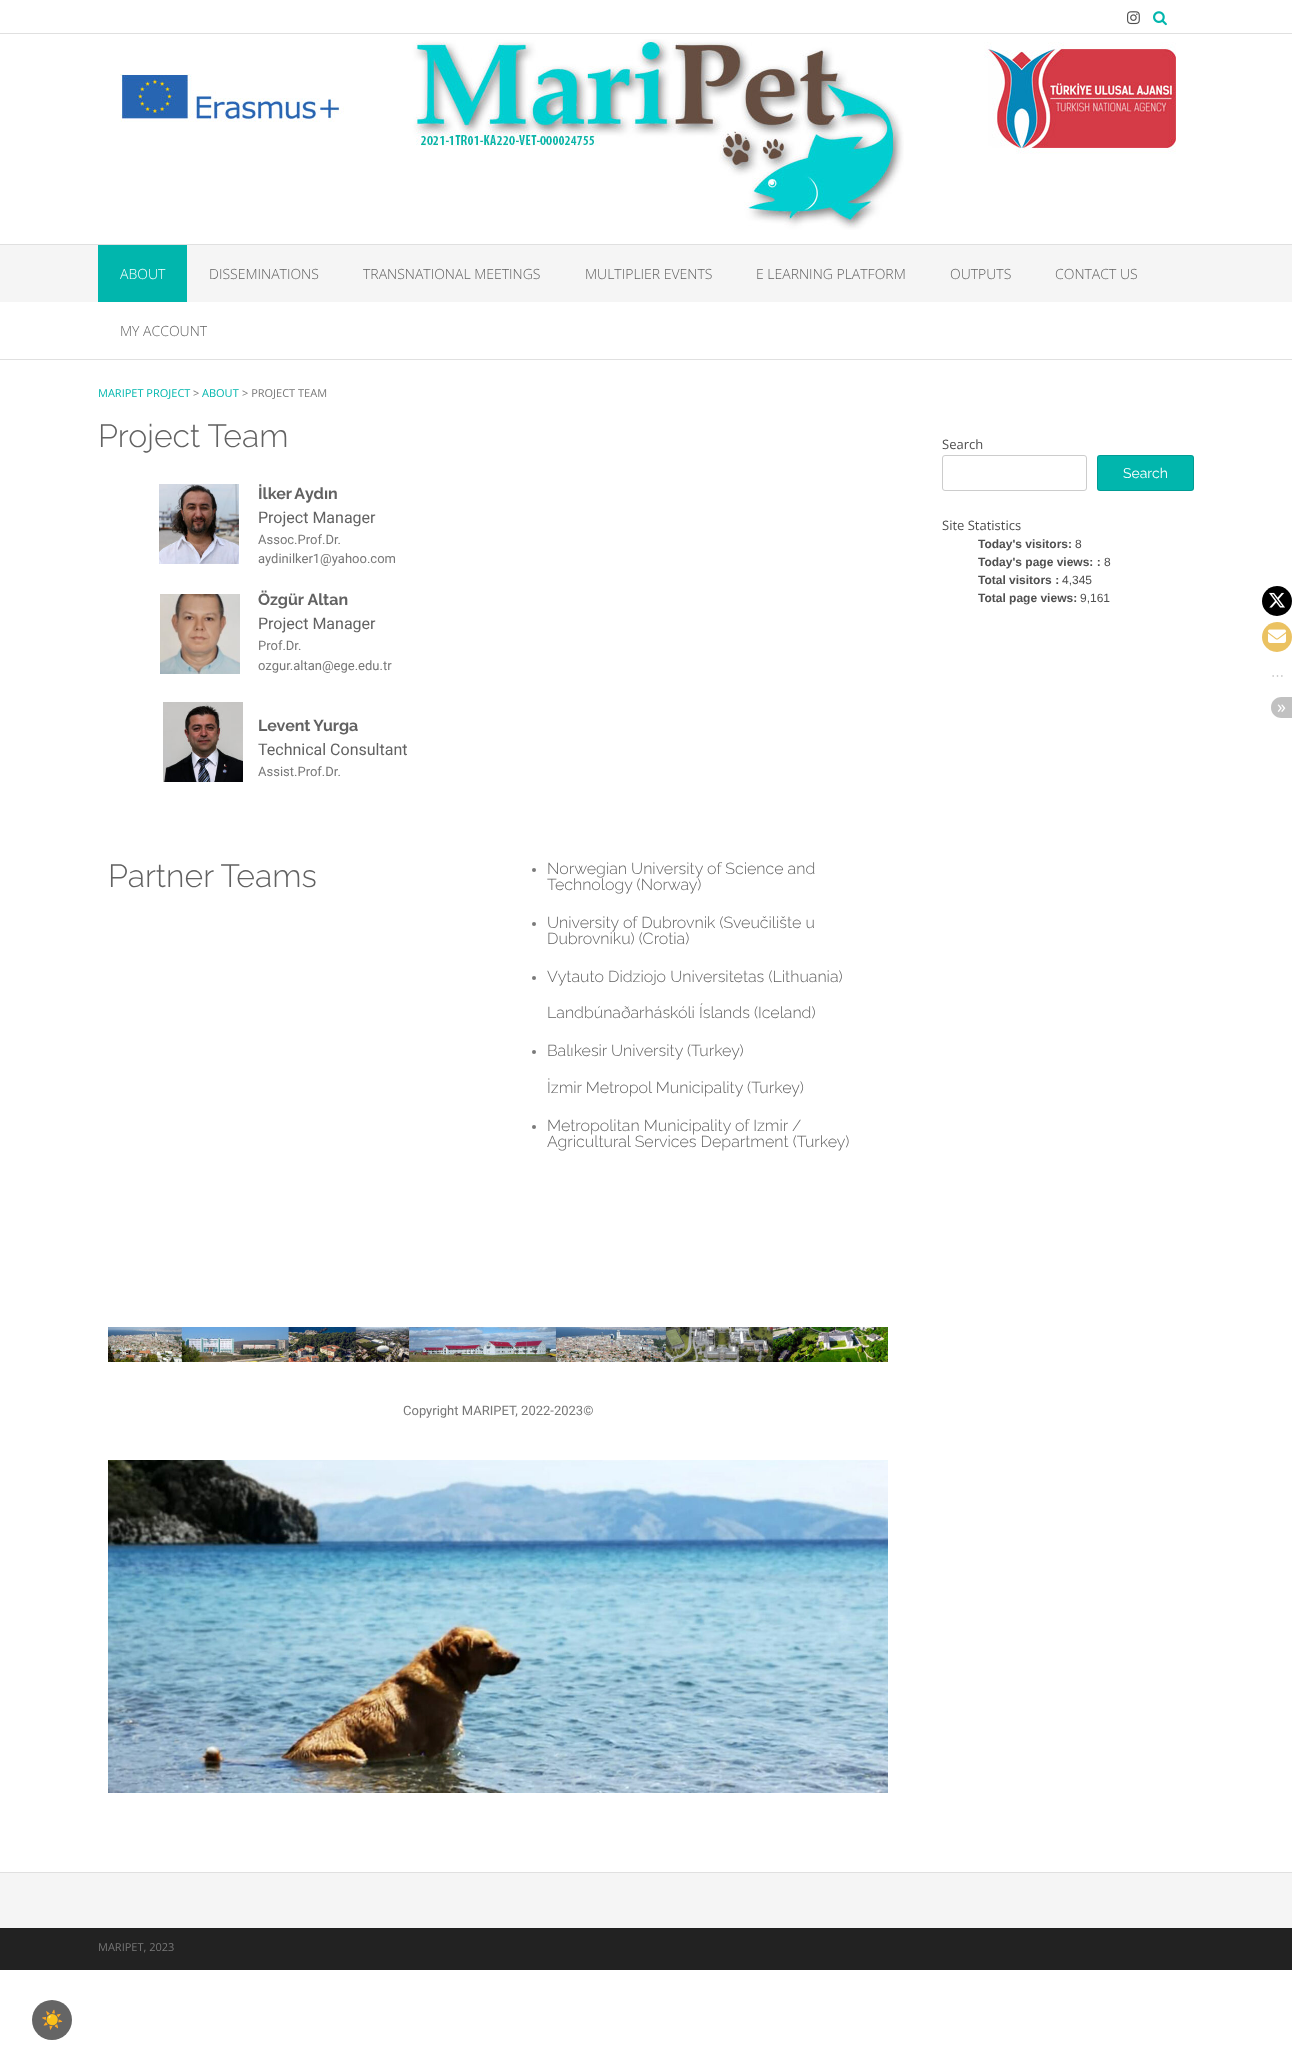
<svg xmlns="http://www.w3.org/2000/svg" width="1292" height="2072">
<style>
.a{font:300 14px Open Sans;fill:#fff}
.b{font:300 14px Open Sans;fill:#626262}
.c{font:11px Open Sans;fill:#01b6ad}
.d{font:11px Open Sans;fill:#777}
.e{font:300 32px Raleway;fill:#626262}
.f{font:bold 16px Raleway;fill:#626262}
.g{font:16px Roboto;fill:#626262}
.h{font:13px Roboto;fill:#777}
.i{font:300 16px Raleway;fill:#626262}
.j{font:13px Open Sans;fill:#4f4f4f}
.k{font:14px Raleway;fill:#fff}
.l{font:bold 12px Liberation Sans;fill:#4f4f4f}
.m{font:12px Liberation Sans;fill:#4f4f4f}
.n{font:13px DejaVu Sans;fill:#c1c1c1}
.o{font:18px Open Sans;fill:#fff}
.p{font:bold 18px Noto Color Emoji;fill:#eee}
</style>
<rect width="100%" height="100%" fill="#fff"/>
<path fill="#e0e0e0" d="M0 359h1292v1H0z"/>
<path fill="#e0e0e0" d="M0 33h1292v1H0z"/>
<image href="1.png" x="1127" y="11" width="13" height="14"/>
<image href="2.png" x="1153" y="11" width="14" height="15"/>
<image href="3.png" x="120" y="39" width="1056" height="191"/>
<path fill="#f5f5f5" d="M0 245h1292v57H0z"/>
<path fill="#e0e0e0" d="M0 244h1292v1H0z"/>
<path fill="#01b6ad" d="M98 245h89v57H98z"/>
<image href="4.png" x="159" y="484" width="80" height="80"/>
<image href="5.png" x="160" y="594" width="80" height="80"/>
<image href="6.png" x="163" y="702" width="80" height="80"/>
<circle fill="#7a7a7a" cx="534" cy="870" r="2"/>
<circle fill="#7a7a7a" cx="534" cy="924" r="2"/>
<circle fill="#7a7a7a" cx="534" cy="978" r="2"/>
<circle fill="#7a7a7a" cx="534" cy="1052" r="2"/>
<circle fill="#7a7a7a" cx="534" cy="1127" r="2"/>
<image href="7.png" x="108" y="1327" width="780" height="35"/>
<image href="8.png" x="108" y="1460" width="780" height="333"/>
<rect fill="none" stroke="#ccc" x="942.5" y="455.5" width="144" height="35" rx="2.5"/>
<rect fill="#01b6ad" x="1097" y="455" width="97" height="36" rx="3"/>
<rect fill="none" stroke="#00000024" x="1097.5" y="455.5" width="96" height="35" rx="2.5"/>
<circle fill="#000" cx="1277" cy="601" r="15"/>
<image href="9.png" x="1269" y="592" width="16" height="16"/>
<circle fill="#ebc262" cx="1277" cy="637" r="15"/>
<image href="10.png" x="1268" y="629" width="18" height="14"/>
<path fill="#c1c1c1" d="M1281.5 697h10.5v21h-10.5c-6 0-10.5-4.5-10.5-10.5c0-6 4.5-10.5 10.5-10.5z"/>
<path fill="#f5f5f5" d="M0 1873h1292v55H0z"/>
<path fill="#e0e0e0" d="M0 1872h1292v1H0z"/>
<path fill="#222" d="M0 1929h1292v41H0z"/>
<path fill="#1f1f1f" d="M0 1928h1292v1H0z"/>
<circle fill="#656565" cx="52" cy="2020" r="20"/>
<text class="a" x="120" y="279">ABOUT</text>
<text class="b" x="209" y="279">DISSEMINATIONS</text>
<text class="b" x="363" y="279">TRANSNATIONAL MEETINGS</text>
<text class="b" x="585" y="279">MULTIPLIER EVENTS</text>
<text class="b" x="756" y="279">E LEARNING PLATFORM</text>
<text class="b" x="950" y="279">OUTPUTS</text>
<text class="b" x="1055" y="279">CONTACT US</text>
<text class="b" x="120" y="336">MY ACCOUNT</text>
<text class="c" x="98" y="397">MARIPET PROJECT</text>
<text class="d" x="193" y="397">&gt;</text>
<text class="c" x="202" y="397">ABOUT</text>
<text class="d" x="242" y="397">&gt; PROJECT TEAM</text>
<text class="e" x="98" y="447">Project Team</text>
<text class="f" x="258" y="499" word-spacing="-1">İlker Aydın</text>
<text class="g" x="258" y="523">Project Manager</text>
<text class="h" x="258" y="544">Assoc.Prof.Dr.</text>
<text class="h" x="258" y="563">aydinilker1@yahoo.com</text>
<text class="f" x="258" y="605">Özgür Altan</text>
<text class="g" x="258" y="629">Project Manager</text>
<text class="h" x="258" y="650">Prof.Dr.</text>
<text class="h" x="258" y="670">ozgur.altan@ege.edu.tr</text>
<text class="f" x="258" y="731" word-spacing="-1">Levent Yurga</text>
<text class="g" x="258" y="755">Technical Consultant</text>
<text class="h" x="258" y="776">Assist.Prof.Dr.</text>
<text class="e" x="108" y="887">Partner Teams</text>
<text class="i" x="547" y="874">Norwegian University of Science and</text>
<text class="i" x="547" y="890">Technology (Norway)</text>
<text class="i" x="547" y="928">University of Dubrovnik (Sveučilište u</text>
<text class="i" x="547" y="944">Dubrovniku) (Crotia)</text>
<text class="i" x="547" y="982">Vytauto Didziojo Universitetas (Lithuania)</text>
<text class="i" x="547" y="1018">Landbúnaðarháskóli Íslands (Iceland)</text>
<text class="i" x="547" y="1056">Balıkesir University (Turkey)</text>
<text class="i" x="547" y="1093">İzmir Metropol Municipality (Turkey)</text>
<text class="i" x="547" y="1131">Metropolitan Municipality of Izmir /</text>
<text class="i" x="547" y="1147">Agricultural Services Department (Turkey)</text>
<text class="h" x="403" y="1415">Copyright MARIPET, 2022-2023©</text>
<text class="j" x="942" y="449">Search</text>
<text class="k" x="1123" y="478">Search</text>
<text class="j" x="942" y="530">Site Statistics</text>
<text class="l" x="978" y="548">Today's visitors:</text>
<text class="m" x="1075" y="548">8</text>
<text class="l" x="978" y="566">Today's page views: :</text>
<text class="m" x="1104" y="566">8</text>
<text class="l" x="978" y="584">Total visitors :</text>
<text class="m" x="1062" y="584">4,345</text>
<text class="l" x="978" y="602">Total page views:</text>
<text class="m" x="1080" y="602">9,161</text>
<text class="n" x="1271" y="680">⋯</text>
<text class="o" x="1277" y="713">»</text>
<text class="d" x="98" y="1951">MARIPET, 2023</text>
<text class="p" x="41" y="2026">☀️</text>
</svg>
